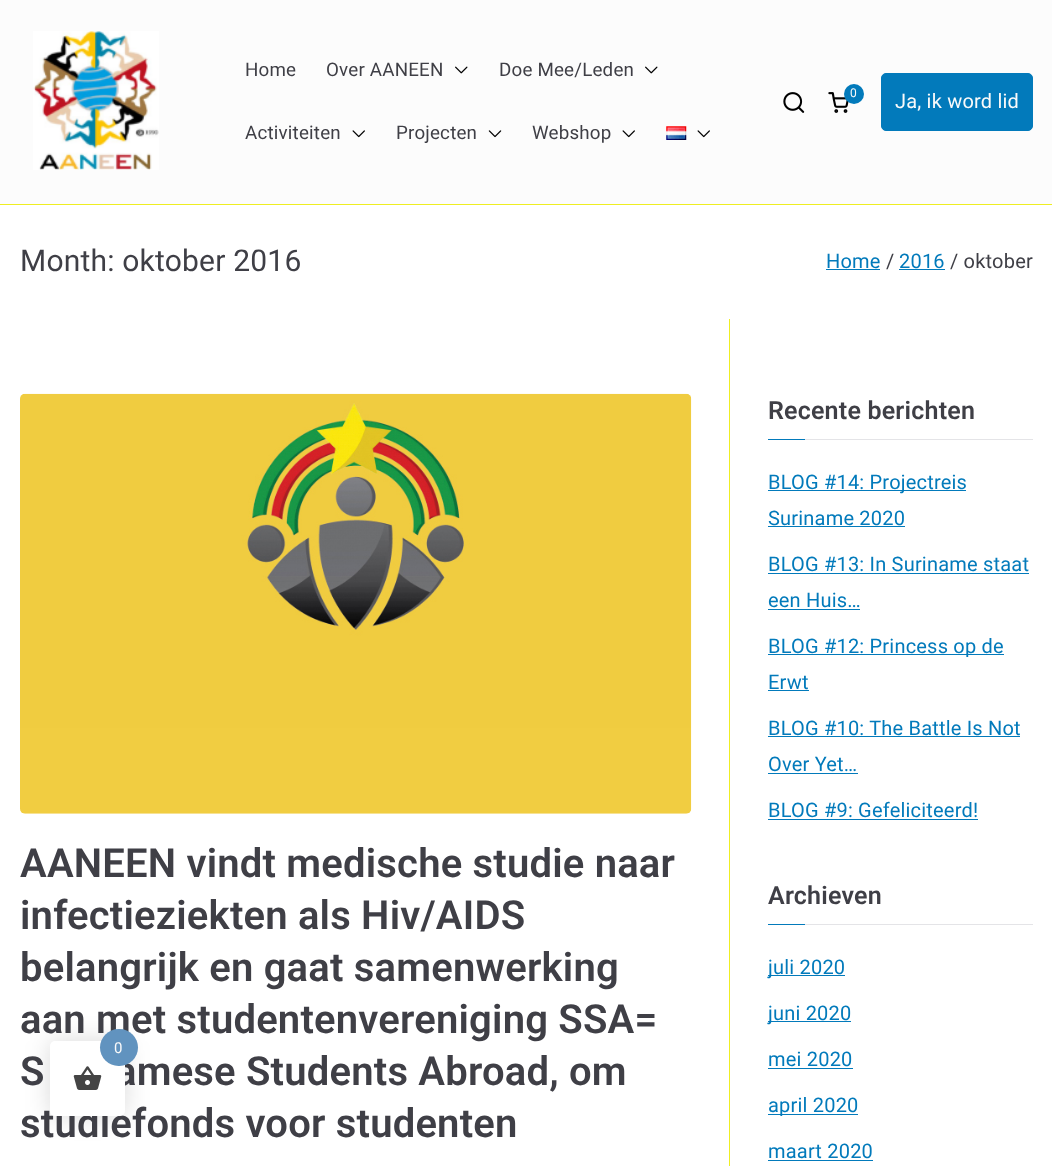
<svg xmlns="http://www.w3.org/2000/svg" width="1052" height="1166">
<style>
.a{font:18.75px Roboto;letter-spacing:0.2px;fill:#3f3f46}
.b{font:12px Roboto;letter-spacing:0.2px;fill:#fafafa}
.c{font:20px Roboto;letter-spacing:0.2px;fill:#fafafa}
.d{font:30px Roboto;letter-spacing:0.2px;fill:#3f3f46}
.e{font:20px Roboto;letter-spacing:0.2px;fill:#027abb}
.f{font:20px Roboto;letter-spacing:0.2px;fill:#3f3f46}
.g{font:600 40px Roboto;letter-spacing:0.2px;fill:#3f3f46}
.h{font:600 25px Roboto;letter-spacing:0.2px;fill:#3f3f46}
.i{font:15px Roboto;letter-spacing:0.2px;fill:#fafafa}
</style>
<rect width="100%" height="100%" fill="#ee2"/>
<path fill="#fcfcfc" d="M0 0h1052v204H0z"/>
<image href="1.png" x="33" y="31" width="126" height="139"/>
<image href="2.png" x="455" y="66" width="13" height="8"/>
<image href="2.png" x="645" y="66" width="13" height="8"/>
<image href="3.png" x="352" y="130" width="13" height="8"/>
<image href="4.png" x="488" y="130" width="14" height="8"/>
<image href="3.png" x="622" y="130" width="13" height="8"/>
<image href="5.png" x="666" y="126" width="21" height="14"/>
<image href="3.png" x="697" y="130" width="13" height="8"/>
<image href="6.png" x="783" y="92" width="22" height="21"/>
<image href="7.png" x="828" y="92" width="21" height="21"/>
<circle fill="#027abb" cx="854" cy="94" r="10"/>
<rect fill="#027abb" stroke="#027abb" x="881.5" y="73.5" width="151" height="57" rx="4.5"/>
<path fill="#fff" d="M0 205h1052v961H0z"/>
<path fill="#027abb" d="M826 269h54v1H826z"/>
<path fill="#027abb" d="M899 269h46v1H899z"/>
<image href="8.png" x="20" y="393" width="672" height="421"/>
<path fill="#ee2" d="M729 319h1v847H729z"/>
<path fill="#e4e4e7" d="M805 439h228v1H805z"/>
<path fill="#027abb" d="M768 439h37v1H768z"/>
<path fill="#027abb" d="M768 490h198v1H768z"/>
<path fill="#027abb" d="M768 526h137v1H768z"/>
<path fill="#027abb" d="M768 573h261v1H768z"/>
<path fill="#027abb" d="M768 609h92v1H768z"/>
<path fill="#027abb" d="M768 654h236v1H768z"/>
<path fill="#027abb" d="M768 690h41v1H768z"/>
<path fill="#027abb" d="M768 736h252v1H768z"/>
<path fill="#027abb" d="M768 773h90v1H768z"/>
<path fill="#027abb" d="M768 819h210v1H768z"/>
<path fill="#e4e4e7" d="M805 924h228v1H805z"/>
<path fill="#027abb" d="M768 924h37v1H768z"/>
<path fill="#027abb" d="M768 975h77v1H768z"/>
<path fill="#027abb" d="M768 1021h83v1H768z"/>
<path fill="#027abb" d="M768 1068h85v1H768z"/>
<path fill="#027abb" d="M768 1114h90v1H768z"/>
<path fill="#027abb" d="M768 1160h105v1H768z"/>
<rect fill="#00000026" filter="blur(12.5px)" x="50" y="1041" width="75" height="75" rx="5"/>
<text class="a" x="245" y="76">Home</text>
<text class="a" x="326" y="76">Over AANEEN</text>
<text class="a" x="499" y="76">Doe Mee/Leden</text>
<text class="a" x="245" y="139">Activiteiten</text>
<text class="a" x="396" y="139">Projecten</text>
<text class="a" x="532" y="139">Webshop</text>
<text class="b" x="850" y="97">0</text>
<text class="c" x="895" y="108">Ja, ik word lid</text>
<text class="d" x="20" y="271">Month: oktober 2016</text>
<text class="e" x="826" y="268">Home</text>
<text class="f" x="886" y="268">/</text>
<text class="e" x="899" y="268">2016</text>
<text class="f" x="950" y="268">/ oktober</text>
<text class="g" x="20" y="877">AANEEN vindt medische studie naar</text>
<text class="g" x="20" y="929">infectieziekten als Hiv/AIDS</text>
<text class="g" x="20" y="981">belangrijk en gaat samenwerking</text>
<text class="g" x="20" y="1033">aan met studentenvereniging SSA=</text>
<text class="g" x="20" y="1085">S</text>
<text class="g" x="115" y="1085">amese Students Abroad, om</text>
<text class="g" x="20" y="1137">studiefonds voor studenten</text>
<text class="h" x="768" y="419">Recente berichten</text>
<text class="e" x="768" y="489">BLOG #14: Projectreis</text>
<text class="e" x="768" y="525">Suriname 2020</text>
<text class="e" x="768" y="571">BLOG #13: In Suriname staat</text>
<text class="e" x="768" y="607">een Huis…</text>
<text class="e" x="768" y="653">BLOG #12: Princess op de</text>
<text class="e" x="768" y="689">Erwt</text>
<text class="e" x="768" y="735">BLOG #10: The Battle Is Not</text>
<text class="e" x="768" y="771">Over Yet…</text>
<text class="e" x="768" y="817">BLOG #9: Gefeliciteerd!</text>
<text class="h" x="768" y="904">Archieven</text>
<text class="e" x="768" y="974">juli 2020</text>
<text class="e" x="768" y="1020">juni 2020</text>
<text class="e" x="768" y="1066">mei 2020</text>
<text class="e" x="768" y="1112">april 2020</text>
<text class="e" x="768" y="1158">maart 2020</text>
<rect fill="#fff" x="50" y="1041" width="75" height="75" rx="5"/>
<rect fill="#6193bf" x="100" y="1029" width="38" height="37" rx="18.5"/>
<text class="i" x="114" y="1053">0</text>
<image href="9.png" x="73" y="1066" width="29" height="24"/>
</svg>
